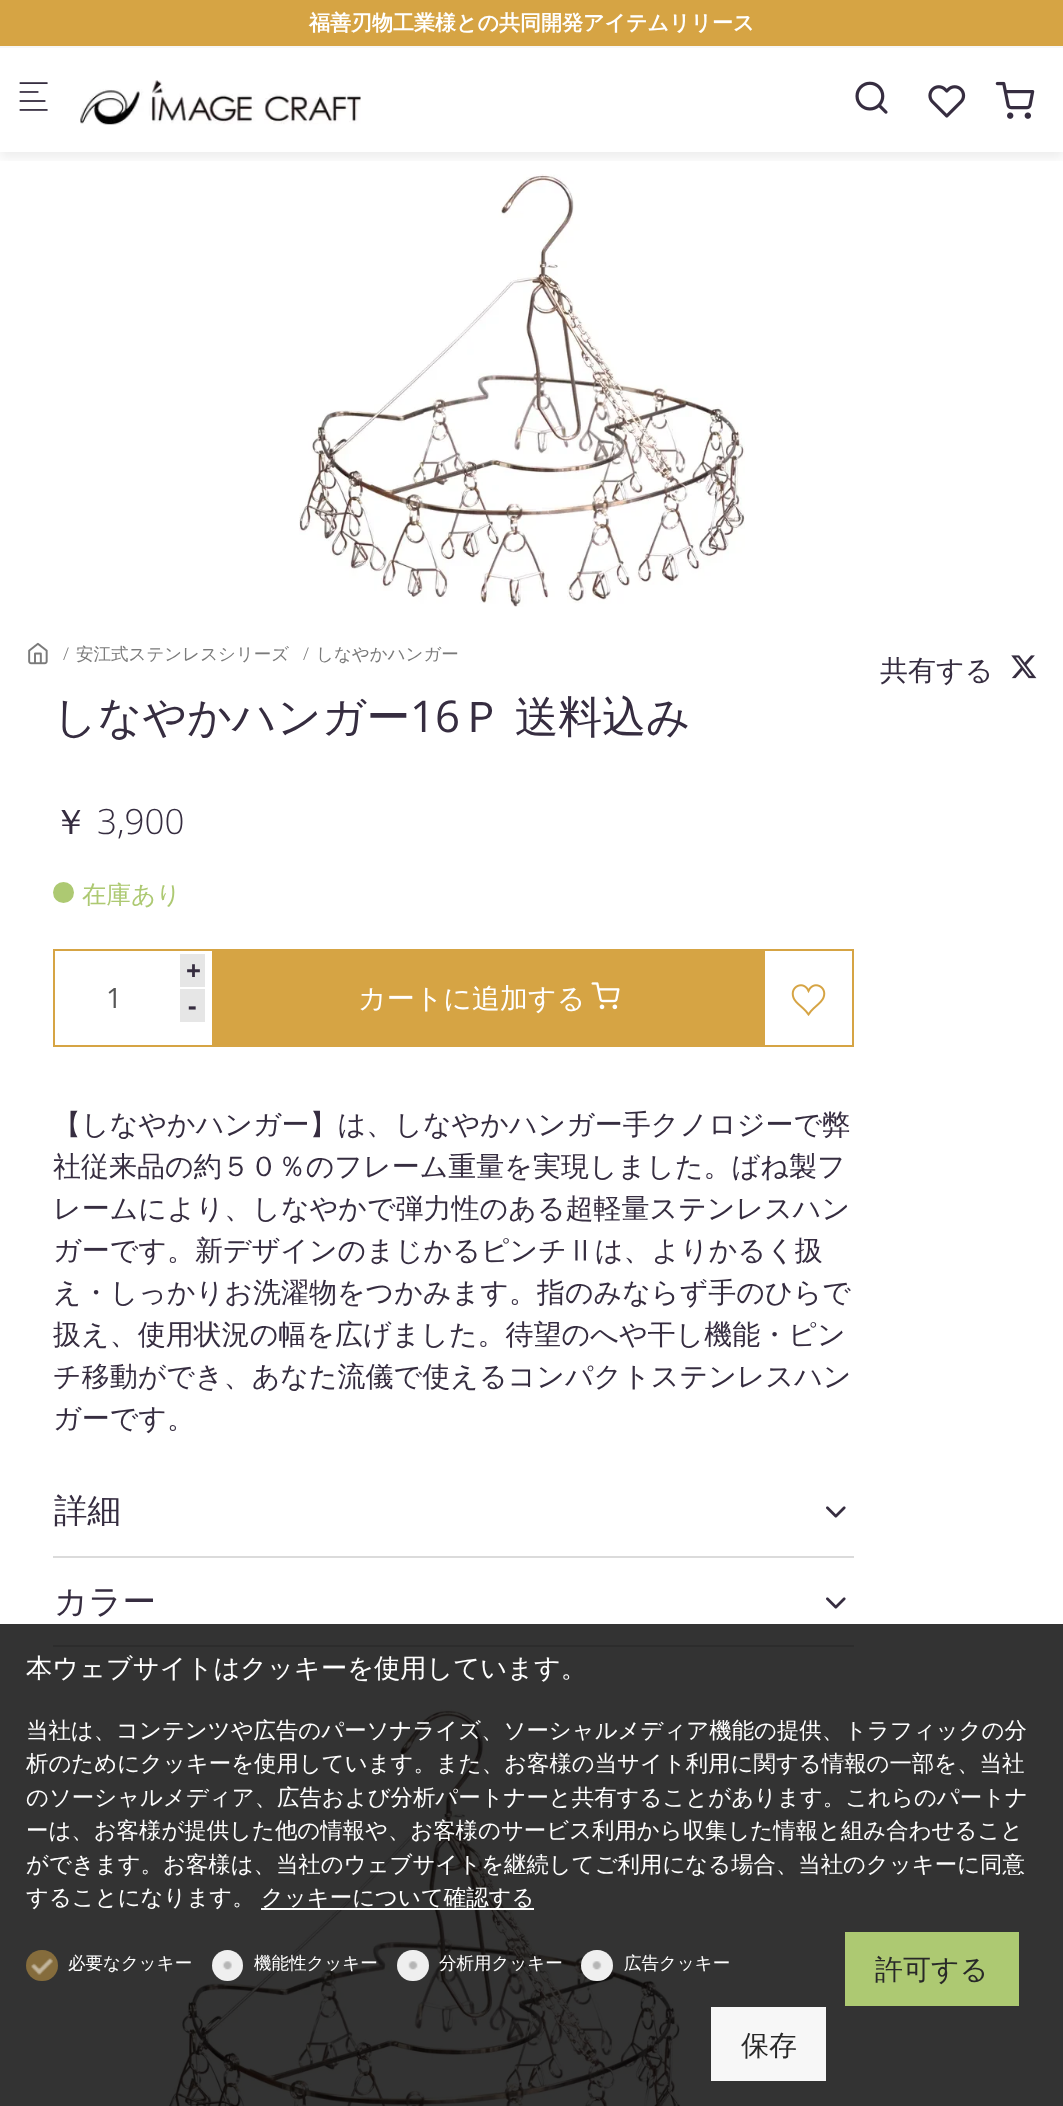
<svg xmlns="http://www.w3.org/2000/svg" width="1063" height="2106">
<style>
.a{font:bold 21px WenQuanYi Zen Hei;fill:#fff}
.b{font:300 17.5px Open Sans;fill:#7a7a7a}
.c{font:500 17.5px WenQuanYi Zen Hei;fill:#7a7a7a}
.d{font:500 28px WenQuanYi Zen Hei;fill:#362d40}
.e{font:500 43.75px WenQuanYi Zen Hei;fill:#362d40}
.f{font:43.75px Open Sans;fill:#362d40}
.g{font:500 35px WenQuanYi Zen Hei;fill:#362d40}
.h{font:300 35px Open Sans;fill:#362d40}
.i{font:500 24.5px WenQuanYi Zen Hei;fill:#adc972}
.j{font:28px Open Sans;fill:#565656}
.k{font:bold 26.25px Open Sans;fill:#362d40}
.l{font:500 28px WenQuanYi Zen Hei;fill:#fff}
.m{font:500 33.5px WenQuanYi Zen Hei;fill:#362d40}
.n{font:500 26.25px WenQuanYi Zen Hei;fill:#fff}
.o{font:500 22.4px WenQuanYi Zen Hei;fill:#fff}
.p{font:500 17.5px WenQuanYi Zen Hei;fill:#fff}
.q{font:500 28px WenQuanYi Zen Hei;fill:#282828}
</style>
<defs>
<clipPath id="clip1"><path d="M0 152h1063v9H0z"/></clipPath>
</defs>
<rect width="100%" height="100%" fill="#fff"/>
<path fill="#333" d="M0 1624h1063v482H0z"/>
<image href="6.png" x="299" y="174" width="446" height="433"/>
<g clip-path="url(#clip1)">
<path fill="#00000012" filter="blur(6px)" d="M0 53h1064v105H0z"/>
</g>
<path fill="#d6a444" d="M0 0h1063v46H0z"/>
<path fill="#f7f7f7" d="M0 46h1063v2H0z"/>
<image href="1.png" x="19" y="82" width="29" height="29"/>
<image href="2.png" x="80" y="80" width="281" height="45"/>
<image href="3.png" x="855" y="81" width="33" height="33"/>
<image href="4.png" x="928" y="85" width="38" height="33"/>
<image href="5.png" x="995" y="81" width="40" height="38"/>
<image href="7.png" x="28" y="642" width="20" height="23"/>
<image href="8.png" x="1011" y="655" width="26" height="24"/>
<circle fill="#adc972" cx="63.5" cy="892.5" r="10.5"/>
<path fill="none" stroke="#d6a444" stroke-width="2" d="M54 950h159v96H54z"/>
<path fill="#e6e6e6" d="M180 954h25v33H180z"/>
<path fill="#e6e6e6" d="M180 989h25v33H180z"/>
<path fill="#d6a444" d="M214 949h549v98H214z"/>
<image href="9.png" x="591" y="982" width="29" height="28"/>
<path fill="none" stroke="#d6a444" stroke-width="2" d="M764 950h89v96H764z"/>
<image href="10.png" x="791" y="984" width="35" height="32"/>
<path fill="#dbdbdb" d="M53 1556h801v2H53z"/>
<image href="11.png" x="826" y="1506" width="20" height="12"/>
<path fill="#2c2c2c" d="M53 1645h801v2H53z"/>
<image href="11.png" x="826" y="1597" width="20" height="12"/>
<image href="12.png" x="168" y="1709" width="513" height="397"/>
<path fill="#fff" d="M261 1908h273v2H261z"/>
<rect fill="#856c3c" x="26" y="1950" width="32" height="31" rx="15.5"/>
<image href="13.png" x="31" y="1958" width="22" height="17"/>
<circle fill="#efefef" cx="227.5" cy="1965.5" r="15.5"/>
<image href="14.png" x="222" y="1961" width="10" height="9"/>
<rect fill="#efefef" x="397" y="1950" width="32" height="31" rx="15.5"/>
<image href="15.png" x="408" y="1961" width="10" height="9"/>
<rect fill="#efefef" x="581" y="1950" width="32" height="31" rx="15.5"/>
<image href="16.png" x="592" y="1961" width="10" height="9"/>
<path fill="#adc972" d="M845 1932h174v74H845z"/>
<path fill="#f7f7f7" d="M711 2007h115v74H711z"/>
<text class="a" x="309" y="30">福善刃物工業様との共同開発アイテムリリース</text>
<text class="b" x="63" y="660">/</text>
<text class="c" x="76" y="660">安江式ステンレスシリーズ</text>
<text class="b" x="303" y="660">/</text>
<text class="c" x="316" y="660">しなやかハンガー</text>
<text class="d" x="880" y="680">共有する</text>
<text class="e" x="53" y="732">しなやかハンガー</text>
<text class="f" x="410" y="732">16</text>
<text class="e" x="460" y="732" word-spacing="-2">Ｐ 送料込み</text>
<text class="g" x="53" y="834">￥</text>
<text class="h" x="97" y="834">3,900</text>
<text class="i" x="82" y="903">在庫あり</text>
<text class="j" x="106" y="1008">1</text>
<text class="k" x="186" y="980">+</text>
<text class="k" x="188" y="1015">-</text>
<text class="l" x="358" y="1008">カートに追加する</text>
<text class="d" x="53" y="1134">【しなやかハンガー】は、しなやかハンガー手クノロジーで弊</text>
<text class="d" x="53" y="1176">社従来品の約５０％のフレーム重量を実現しました。ばね製フ</text>
<text class="d" x="53" y="1218">レームにより、しなやかで弾力性のある超軽量ステンレスハン</text>
<text class="d" x="53" y="1260">ガーです。新デザインのまじかるピンチⅡは、よりかるく扱</text>
<text class="d" x="53" y="1302">え・しっかりお洗濯物をつかみます。指のみならず手のひらで</text>
<text class="d" x="53" y="1344">扱え、使用状況の幅を広げました。待望のへや干し機能・ピン</text>
<text class="d" x="53" y="1386">チ移動ができ、あなた流儀で使えるコンパクトステンレスハン</text>
<text class="d" x="53" y="1428">ガーです。</text>
<text class="m" x="54" y="1522">詳細</text>
<text class="m" x="54" y="1613">カラー</text>
<text class="n" x="26" y="1677">本ウェブサイトはクッキーを使用しています。</text>
<text class="o" x="26" y="1738">当社は、コンテンツや広告のパーソナライズ、ソーシャルメディア機能の提供、トラフィックの分</text>
<text class="o" x="26" y="1771">析のためにクッキーを使用しています。また、お客様の当サイト利用に関する情報の一部を、当社</text>
<text class="o" x="26" y="1805">のソーシャルメディア、広告および分析パートナーと共有することがあります。これらのパートナ</text>
<text class="o" x="26" y="1838">ーは、お客様が提供した他の情報や、お客様のサービス利用から収集した情報と組み合わせること</text>
<text class="o" x="26" y="1872">ができます。お客様は、当社のウェブサイトを継続してご利用になる場合、当社のクッキーに同意</text>
<text class="o" x="26" y="1905">することになります。</text>
<text class="o" x="261" y="1905">クッキーについて確認する</text>
<text class="p" x="68" y="1969">必要なクッキー</text>
<text class="p" x="254" y="1969">機能性クッキー</text>
<text class="p" x="439" y="1969">分析用クッキー</text>
<text class="p" x="624" y="1969">広告クッキー</text>
<text class="q" x="875" y="1979">許可する</text>
<text class="q" x="741" y="2055">保存</text>
</svg>
